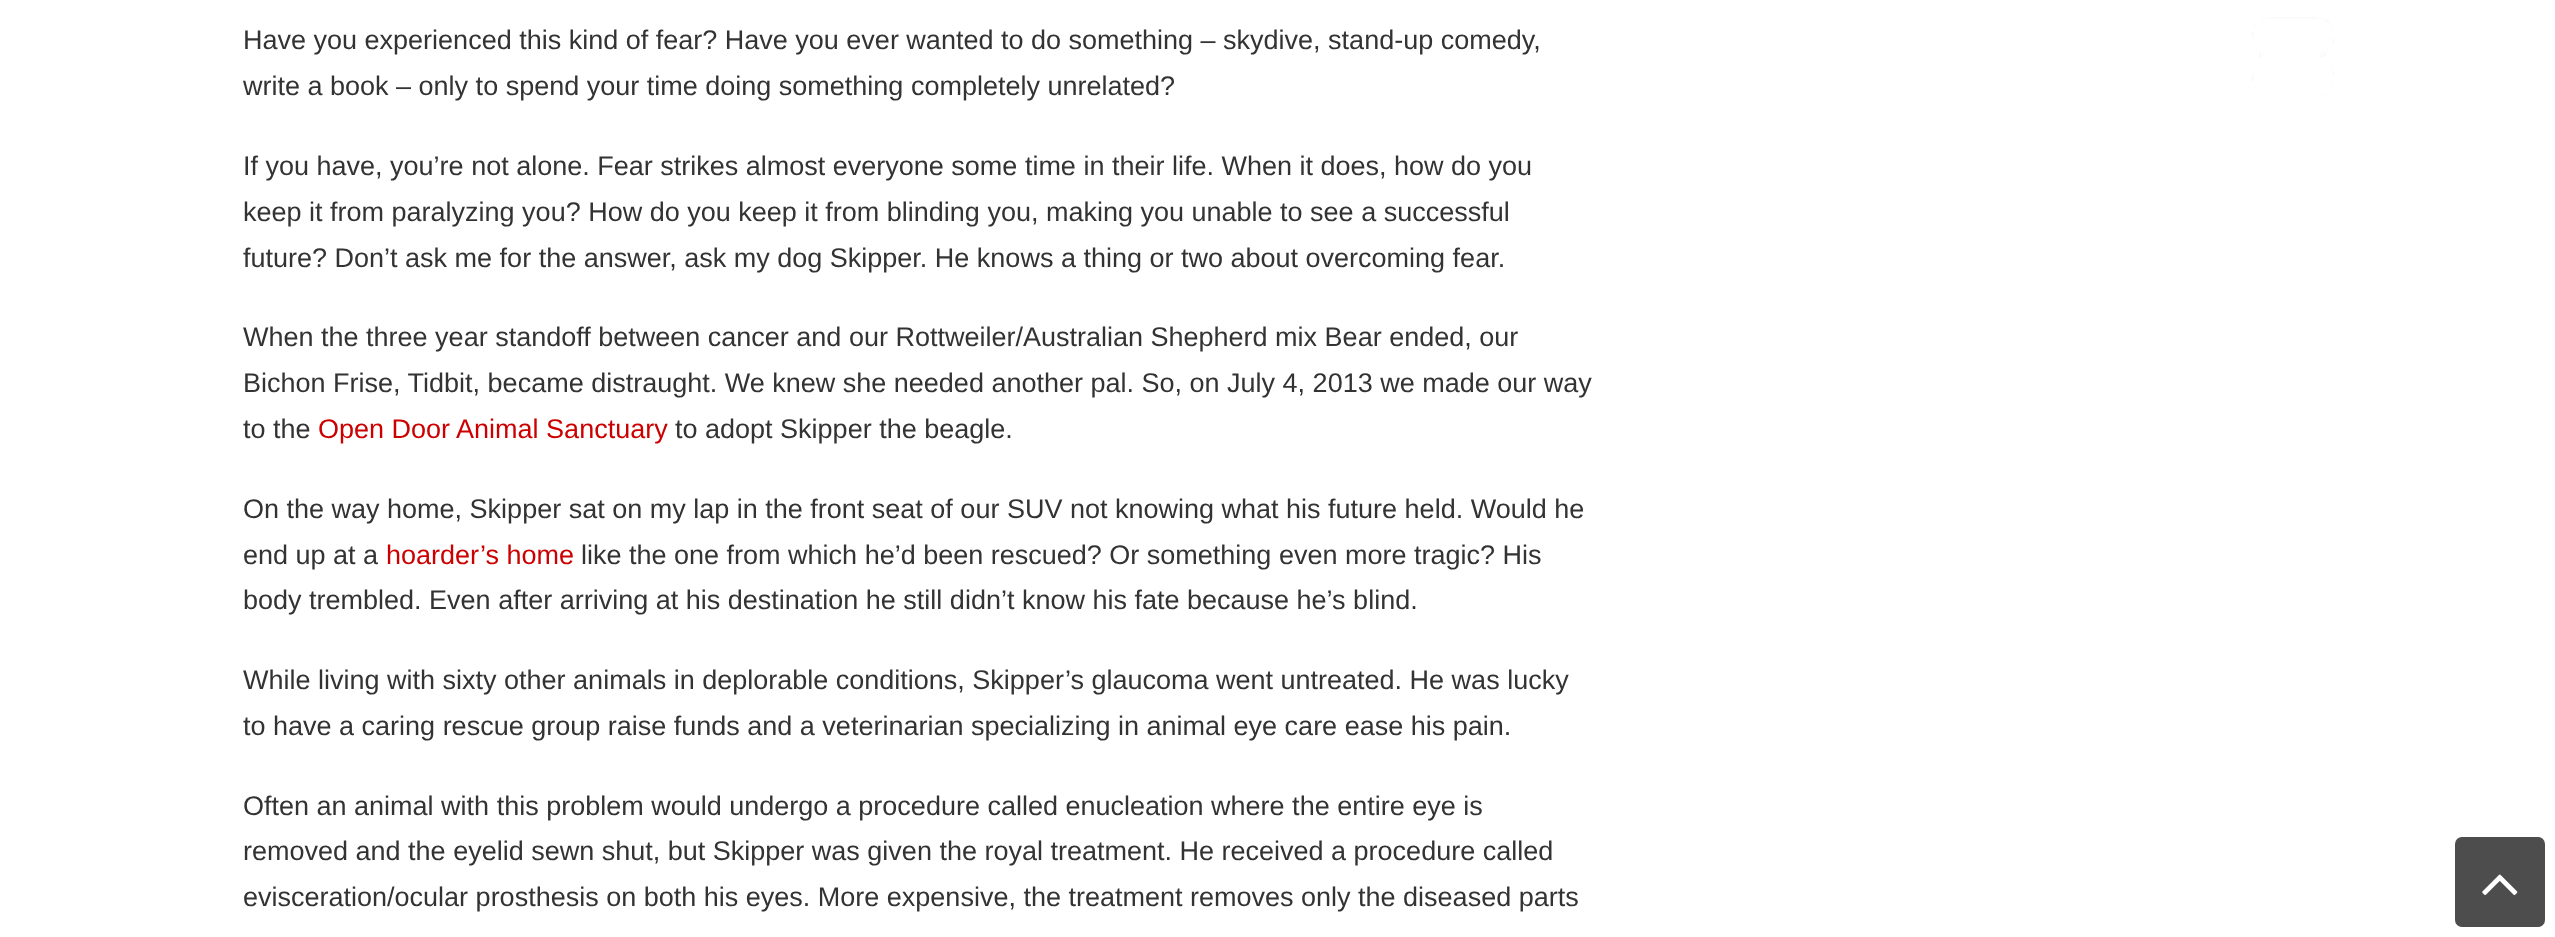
<svg xmlns="http://www.w3.org/2000/svg" width="2555" height="937">
<style>
.a{font:27px Liberation Sans;fill:#333}
.b{font:27px Liberation Sans;fill:#c00}
</style>
<rect width="100%" height="100%" fill="#fff"/>
<image href="1.png" x="2252" y="17" width="82" height="79"/>
<rect fill="#4d4d4d" x="2455" y="837" width="90" height="90" rx="7"/>
<image href="2.png" x="2482" y="874" width="36" height="21"/>
<text class="a" x="243" y="49">Have you experienced this kind of fear? Have you ever wanted to do something – skydive, stand-up comedy,</text>
<text class="a" x="243" y="95">write a book – only to spend your time doing something completely unrelated?</text>
<text class="a" x="243" y="175">If you have, you’re not alone. Fear strikes almost everyone some time in their life. When it does, how do you</text>
<text class="a" x="243" y="221">keep it from paralyzing you? How do you keep it from blinding you, making you unable to see a successful</text>
<text class="a" x="243" y="267">future? Don’t ask me for the answer, ask my dog Skipper. He knows a thing or two about overcoming fear.</text>
<text class="a" x="243" y="346">When the three year standoff between cancer and our Rottweiler/Australian Shepherd mix Bear ended, our</text>
<text class="a" x="243" y="392">Bichon Frise, Tidbit, became distraught. We knew she needed another pal. So, on July 4, 2013 we made our way</text>
<text class="a" x="243" y="438">to the</text>
<text class="b" x="318" y="438">Open Door Animal Sanctuary</text>
<text class="a" x="675" y="438">to adopt Skipper the beagle.</text>
<text class="a" x="243" y="518">On the way home, Skipper sat on my lap in the front seat of our SUV not knowing what his future held. Would he</text>
<text class="a" x="243" y="564">end up at a</text>
<text class="b" x="386" y="564">hoarder’s home</text>
<text class="a" x="581" y="564">like the one from which he’d been rescued? Or something even more tragic? His</text>
<text class="a" x="243" y="609">body trembled. Even after arriving at his destination he still didn’t know his fate because he’s blind.</text>
<text class="a" x="243" y="689">While living with sixty other animals in deplorable conditions, Skipper’s glaucoma went untreated. He was lucky</text>
<text class="a" x="243" y="735">to have a caring rescue group raise funds and a veterinarian specializing in animal eye care ease his pain.</text>
<text class="a" x="243" y="815">Often an animal with this problem would undergo a procedure called enucleation where the entire eye is</text>
<text class="a" x="243" y="860">removed and the eyelid sewn shut, but Skipper was given the royal treatment. He received a procedure called</text>
<text class="a" x="243" y="906">evisceration/ocular prosthesis on both his eyes. More expensive, the treatment removes only the diseased parts</text>
</svg>
